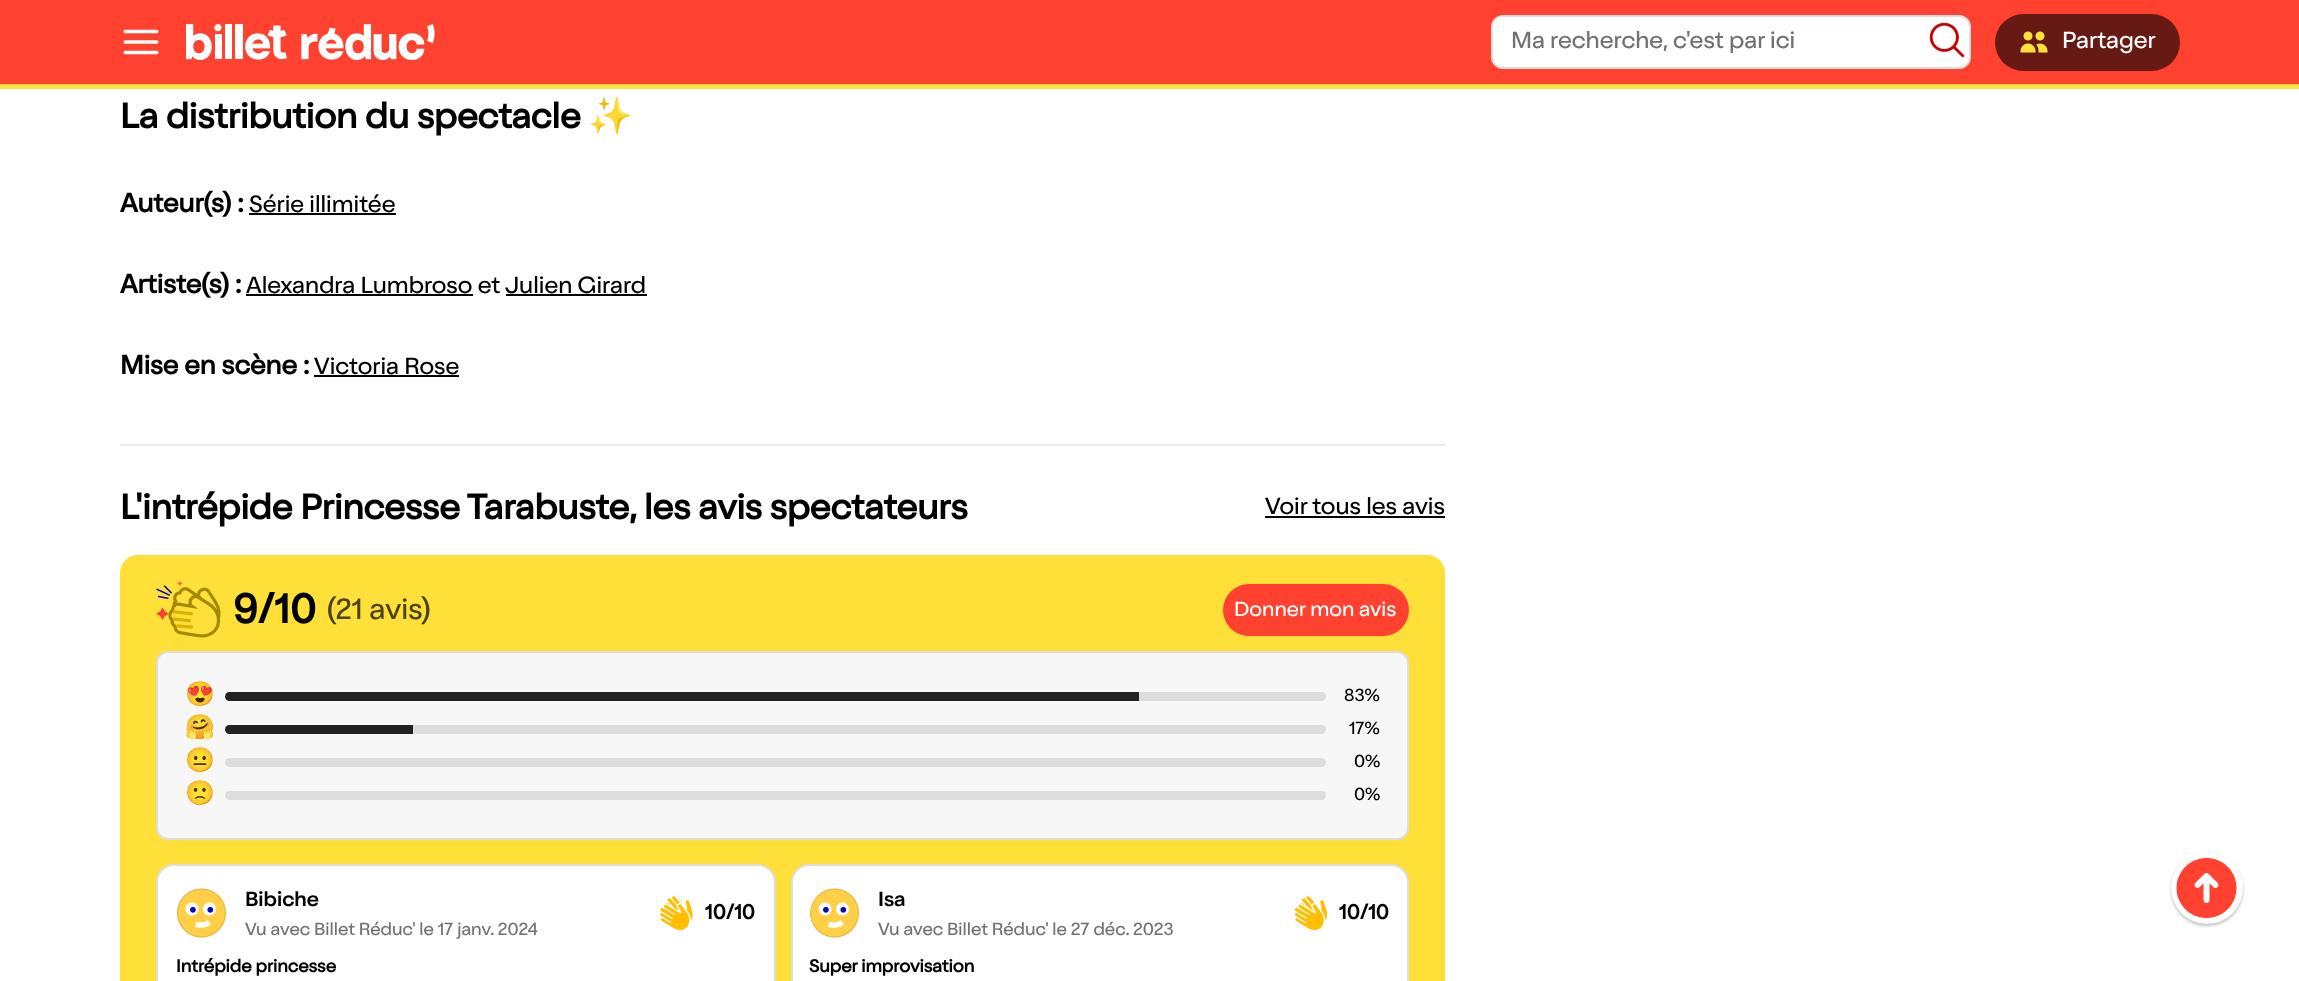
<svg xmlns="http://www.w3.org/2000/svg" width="2299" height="981">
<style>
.a{font:24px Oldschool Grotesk;fill:#717171}
.b{font:24px Oldschool Grotesk;fill:#fff}
.c{font:bold 36px Oldschool Grotesk;fill:#000}
.d{font:bold 36px Noto Color Emoji;fill:#000}
.e{font:bold 27px Oldschool Grotesk;fill:#000}
.f{font:24px Oldschool Grotesk;fill:#000}
.g{font:bold 42px Oldschool Grotesk;fill:#000}
.h{font:30px Oldschool Grotesk;fill:#4d4311}
.i{font:21px Oldschool Grotesk;fill:#fff}
.j{font:24px Noto Color Emoji;fill:#000}
.k{font:18px Oldschool Grotesk;fill:#000}
.l{font:500 21px Oldschool Grotesk;fill:#000}
.m{font:18px Oldschool Grotesk;fill:#717171}
.n{font:bold 21px Oldschool Grotesk;fill:#000}
.o{font:bold 18px Oldschool Grotesk;fill:#000}
</style>
<rect width="100%" height="100%" fill="#fff"/>
<path fill="#ff4130" d="M0 0h2299v84H0z"/>
<path fill="#ffe039" d="M0 84h2299v5H0z"/>
<image href="1.png" x="123" y="29" width="36" height="26"/>
<image href="2.png" x="186" y="24" width="249" height="36"/>
<rect fill="#fff" stroke="#ddd" stroke-width="2" x="1492" y="16" width="478" height="52" rx="11"/>
<image href="3.png" x="1929" y="22" width="36" height="36"/>
<rect fill="#661a13" x="1995" y="14" width="185" height="57" rx="28.5"/>
<image href="4.png" x="2020" y="31" width="28" height="22"/>
<path fill="#000" d="M249 213h147v2H249z"/>
<path fill="#000" d="M246 294h227v2H246z"/>
<path fill="#000" d="M506 294h141v2H506z"/>
<path fill="#000" d="M314 375h145v2H314z"/>
<path fill="#ebebeb" d="M120 444h1325v2H120z"/>
<path fill="#000" d="M1265 516h180v2H1265z"/>
<rect fill="#ffe039" x="120" y="555" width="1325" height="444" rx="18"/>
<image href="5.png" x="156" y="581" width="65" height="57"/>
<rect fill="#ff4130" x="1223" y="584" width="186" height="52" rx="26"/>
<rect fill="#f7f7f7" stroke="#ddd" stroke-width="2" x="157" y="652" width="1251" height="187" rx="11"/>
<rect fill="#ddd" x="225" y="692" width="1101" height="9" rx="4.5"/>
<path fill="#222" d="M229.5 692h909.5v9h-909.5c-2.5 0-4.5-2-4.5-4.5c0-2.5 2-4.5 4.5-4.5z"/>
<rect fill="#ddd" x="225" y="725" width="1101" height="9" rx="4.5"/>
<path fill="#222" d="M229.5 725h183.5v9h-183.5c-2.5 0-4.5-2-4.5-4.5c0-2.5 2-4.5 4.5-4.5z"/>
<rect fill="#ddd" x="225" y="758" width="1101" height="9" rx="4.5"/>
<rect fill="#ddd" x="225" y="791" width="1101" height="9" rx="4.5"/>
<rect fill="#fff" stroke="#ddd" stroke-width="2" x="157" y="865" width="618" height="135" rx="17"/>
<image href="6.png" x="177" y="888" width="49" height="50"/>
<image href="7.png" x="660" y="896" width="33" height="34"/>
<rect fill="#fff" stroke="#ddd" stroke-width="2" x="792" y="865" width="616" height="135" rx="17"/>
<image href="8.png" x="810" y="888" width="49" height="50"/>
<image href="9.png" x="1294" y="896" width="34" height="34"/>
<rect fill="#00000040" filter="blur(1.5px)" x="2171" y="854" width="72" height="72" rx="36"/>
<circle fill="#fff" cx="2207" cy="888" r="36"/>
<image href="10.png" x="2176" y="858" width="61" height="60"/>
<text class="a" x="1511" y="48">Ma recherche, c'est par ici</text>
<text class="b" x="2062" y="48">Partager</text>
<text class="c" x="120" y="128">La distribution du spectacle</text>
<text class="d" x="588" y="128">✨</text>
<text class="e" x="120" y="212">Auteur(s) :</text>
<text class="f" x="249" y="212">Série illimitée</text>
<text class="e" x="120" y="293">Artiste(s) :</text>
<text class="f" x="246" y="293">Alexandra Lumbroso et</text>
<text class="f" x="505" y="293">Julien Girard</text>
<text class="e" x="120" y="374">Mise en scène :</text>
<text class="f" x="314" y="374">Victoria Rose</text>
<text class="c" x="120" y="519">L'intrépide Princesse Tarabuste, les avis spectateurs</text>
<text class="f" x="1265" y="514">Voir tous les avis</text>
<text class="g" x="233" y="623">9/10</text>
<text class="h" x="327" y="619">(21 avis)</text>
<text class="i" x="1234" y="616">Donner mon avis</text>
<text class="j" x="185" y="702">😍</text>
<text class="k" x="1344" y="701">83%</text>
<text class="j" x="185" y="735">🤗</text>
<text class="k" x="1349" y="734">17%</text>
<text class="j" x="185" y="768">😐</text>
<text class="k" x="1354" y="767">0%</text>
<text class="j" x="185" y="801">🙁</text>
<text class="k" x="1354" y="800">0%</text>
<text class="l" x="245" y="906">Bibiche</text>
<text class="m" x="245" y="935">Vu avec Billet Réduc' le 17 janv. 2024</text>
<text class="n" x="705" y="919">10/10</text>
<text class="o" x="176" y="972">Intrépide princesse</text>
<text class="l" x="878" y="906">Isa</text>
<text class="m" x="878" y="935">Vu avec Billet Réduc' le 27 déc. 2023</text>
<text class="n" x="1339" y="919">10/10</text>
<text class="o" x="809" y="972">Super improvisation</text>
</svg>
